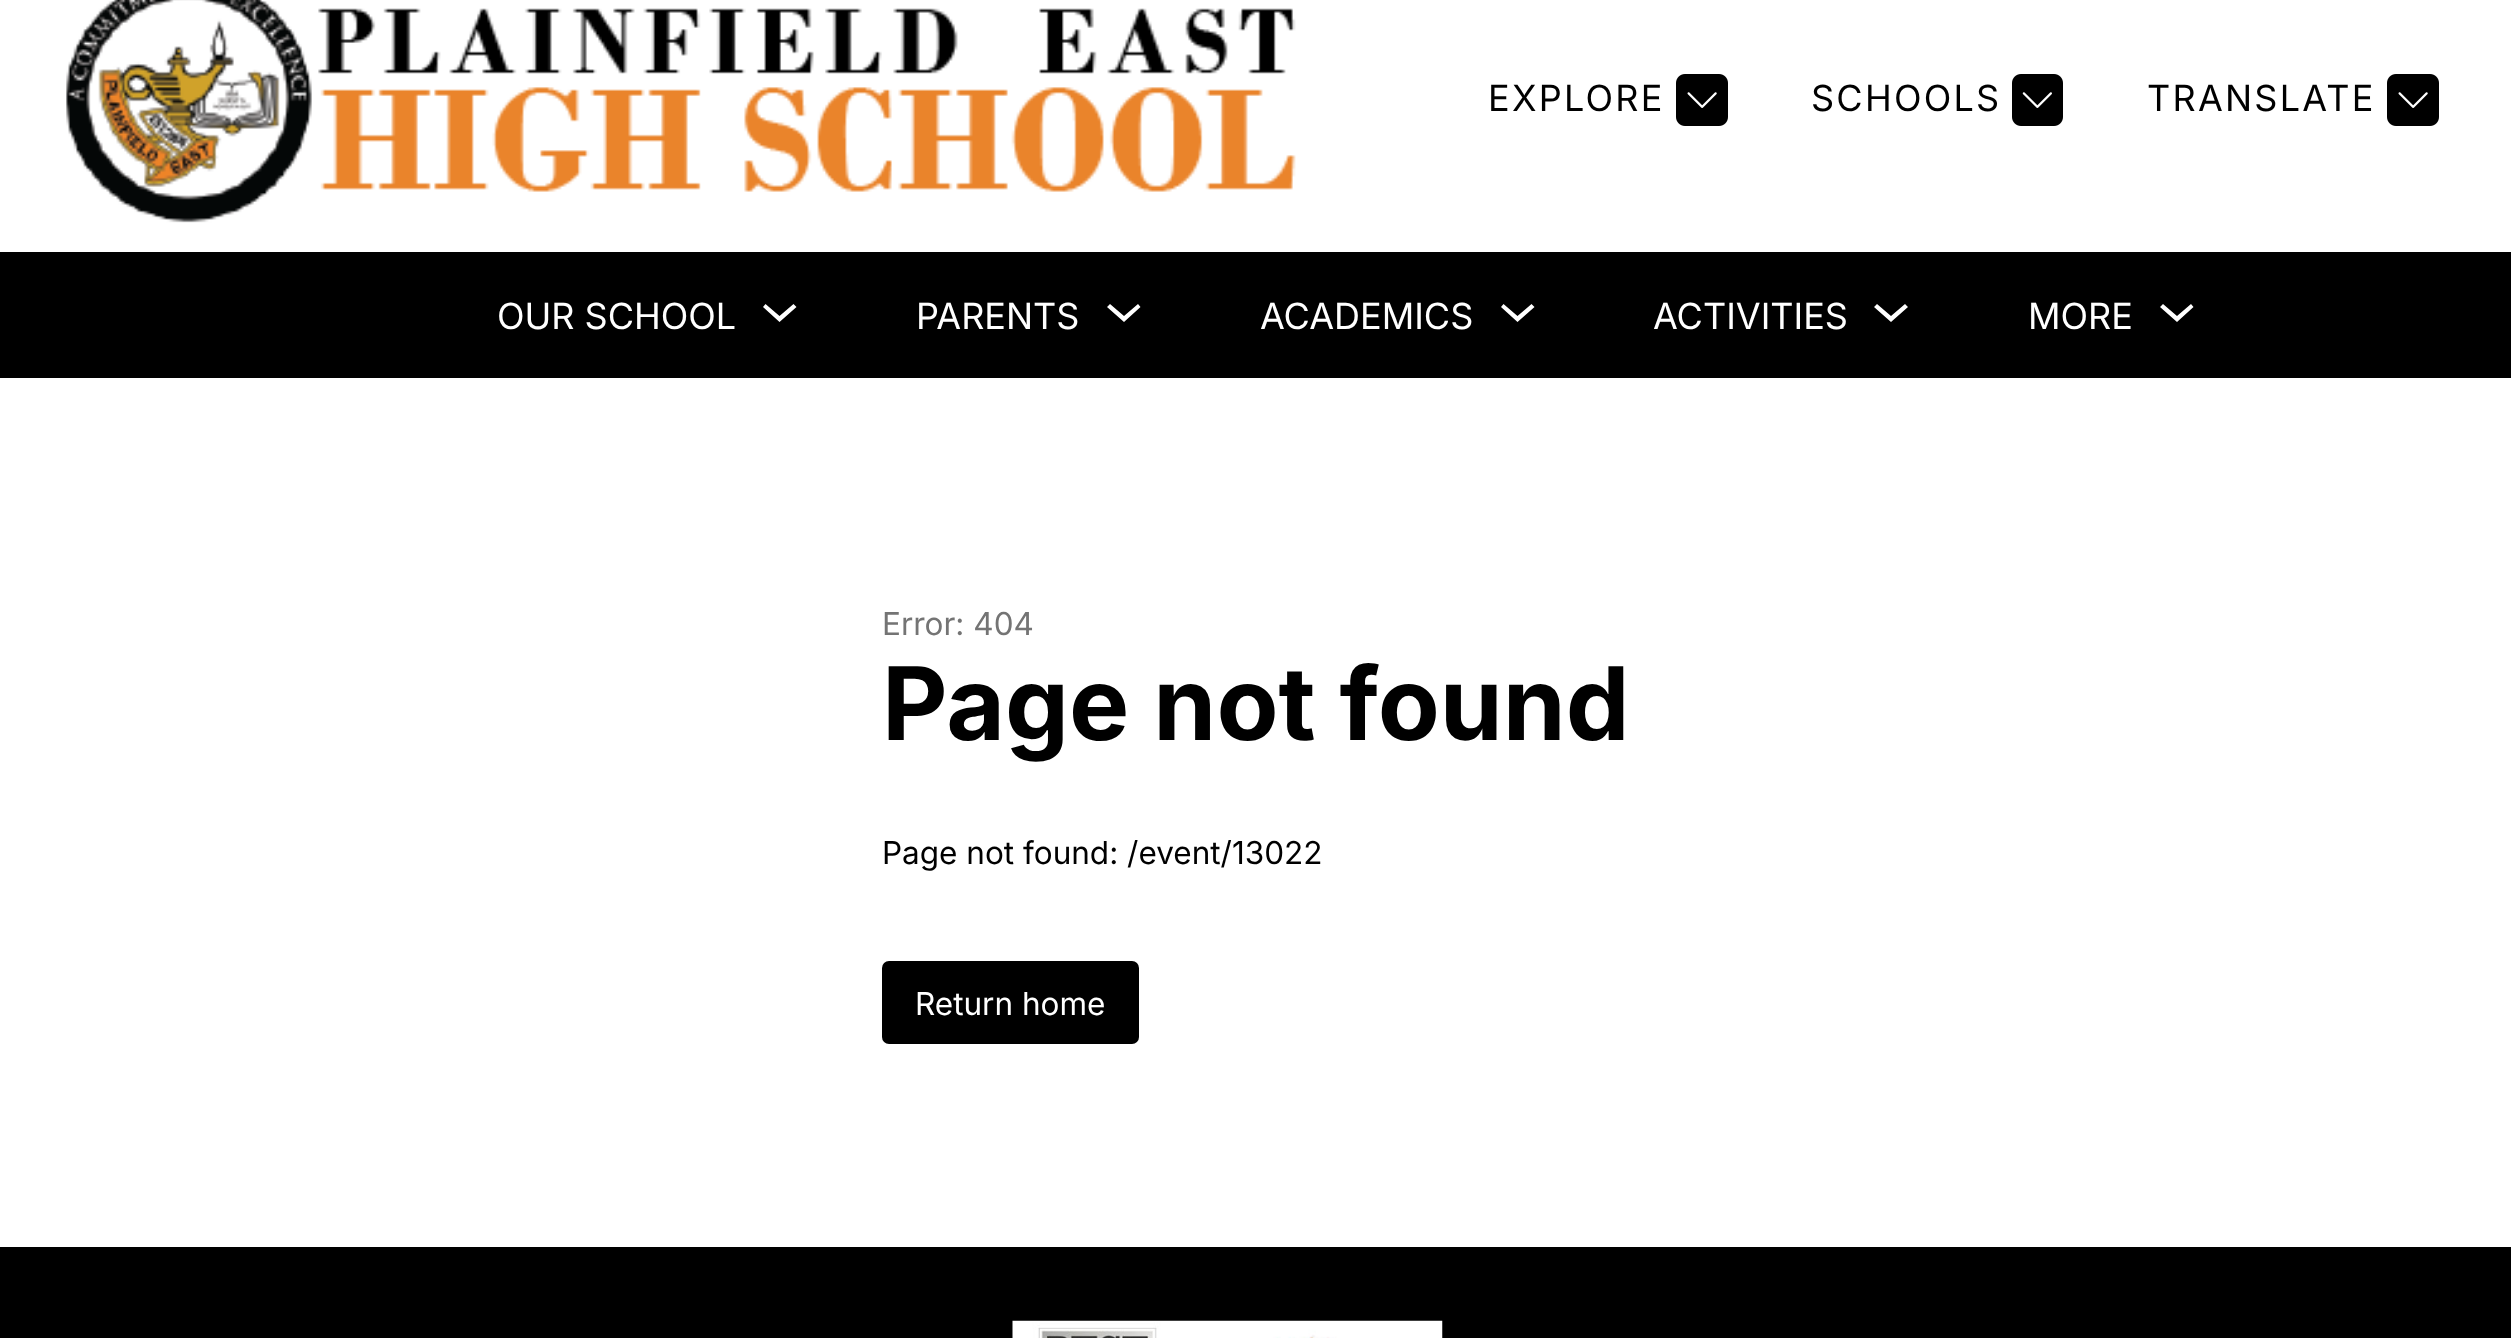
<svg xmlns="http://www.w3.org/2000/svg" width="2511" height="1338">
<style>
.a{font:36px Inter;letter-spacing:2.25px;fill:#000}
.b{font:36px Inter;fill:#fff}
.c{font:31.5px Inter;fill:#747474}
.d{font:bold 101.25px Inter;fill:#000}
.e{font:31.5px Inter;fill:#000}
.f{font:31.5px Inter;fill:#fff}
</style>
<rect width="100%" height="100%" fill="#fff"/>
<image href="1.png" x="66" y="0" width="1230" height="223"/>
<image href="2.png" x="1676" y="74" width="52" height="52"/>
<image href="3.png" x="2012" y="74" width="51" height="52"/>
<image href="2.png" x="2387" y="74" width="52" height="52"/>
<path fill="#000" d="M0 252h2511v126H0z"/>
<path fill="#fff" fill-rule="evenodd" d="M793.5 304l-14 12l-14-12l-2.5 3l16.5 15l17-15z"/>
<path fill="#fff" fill-rule="evenodd" d="M1138 304l-14 12l-14-12l-3 3l17 15l16.5-15z"/>
<path fill="#fff" fill-rule="evenodd" d="M1531.5 304l-14 12l-14-12l-2.5 3l16.5 15l17-15z"/>
<path fill="#fff" fill-rule="evenodd" d="M1905 304l-14 12l-14-12l-3 3l17 15l17-15z"/>
<path fill="#fff" fill-rule="evenodd" d="M2191 304l-14 12l-14-12l-3 3l17 15l16.5-15z"/>
<rect fill="#000" x="882" y="961" width="257" height="83" rx="7"/>
<path fill="#000" d="M0 1247h2511v91H0z"/>
<image href="4.png" x="1012" y="1320" width="431" height="18"/>
<text class="a" x="1488" y="111">EXPLORE</text>
<text class="a" x="1811" y="111">SCHOOLS</text>
<text class="a" x="2147" y="111">TRANSLATE</text>
<text class="b" x="497" y="329">OUR SCHOOL</text>
<text class="b" x="916" y="329">PARENTS</text>
<text class="b" x="1260" y="329">ACADEMICS</text>
<text class="b" x="1653" y="329">ACTIVITIES</text>
<text class="b" x="2028" y="329">MORE</text>
<text class="c" x="882" y="635">Error: 404</text>
<text class="d" x="882" y="740">Page not found</text>
<text class="e" x="882" y="864">Page not found: /event/13022</text>
<text class="f" x="915" y="1015">Return home</text>
</svg>
